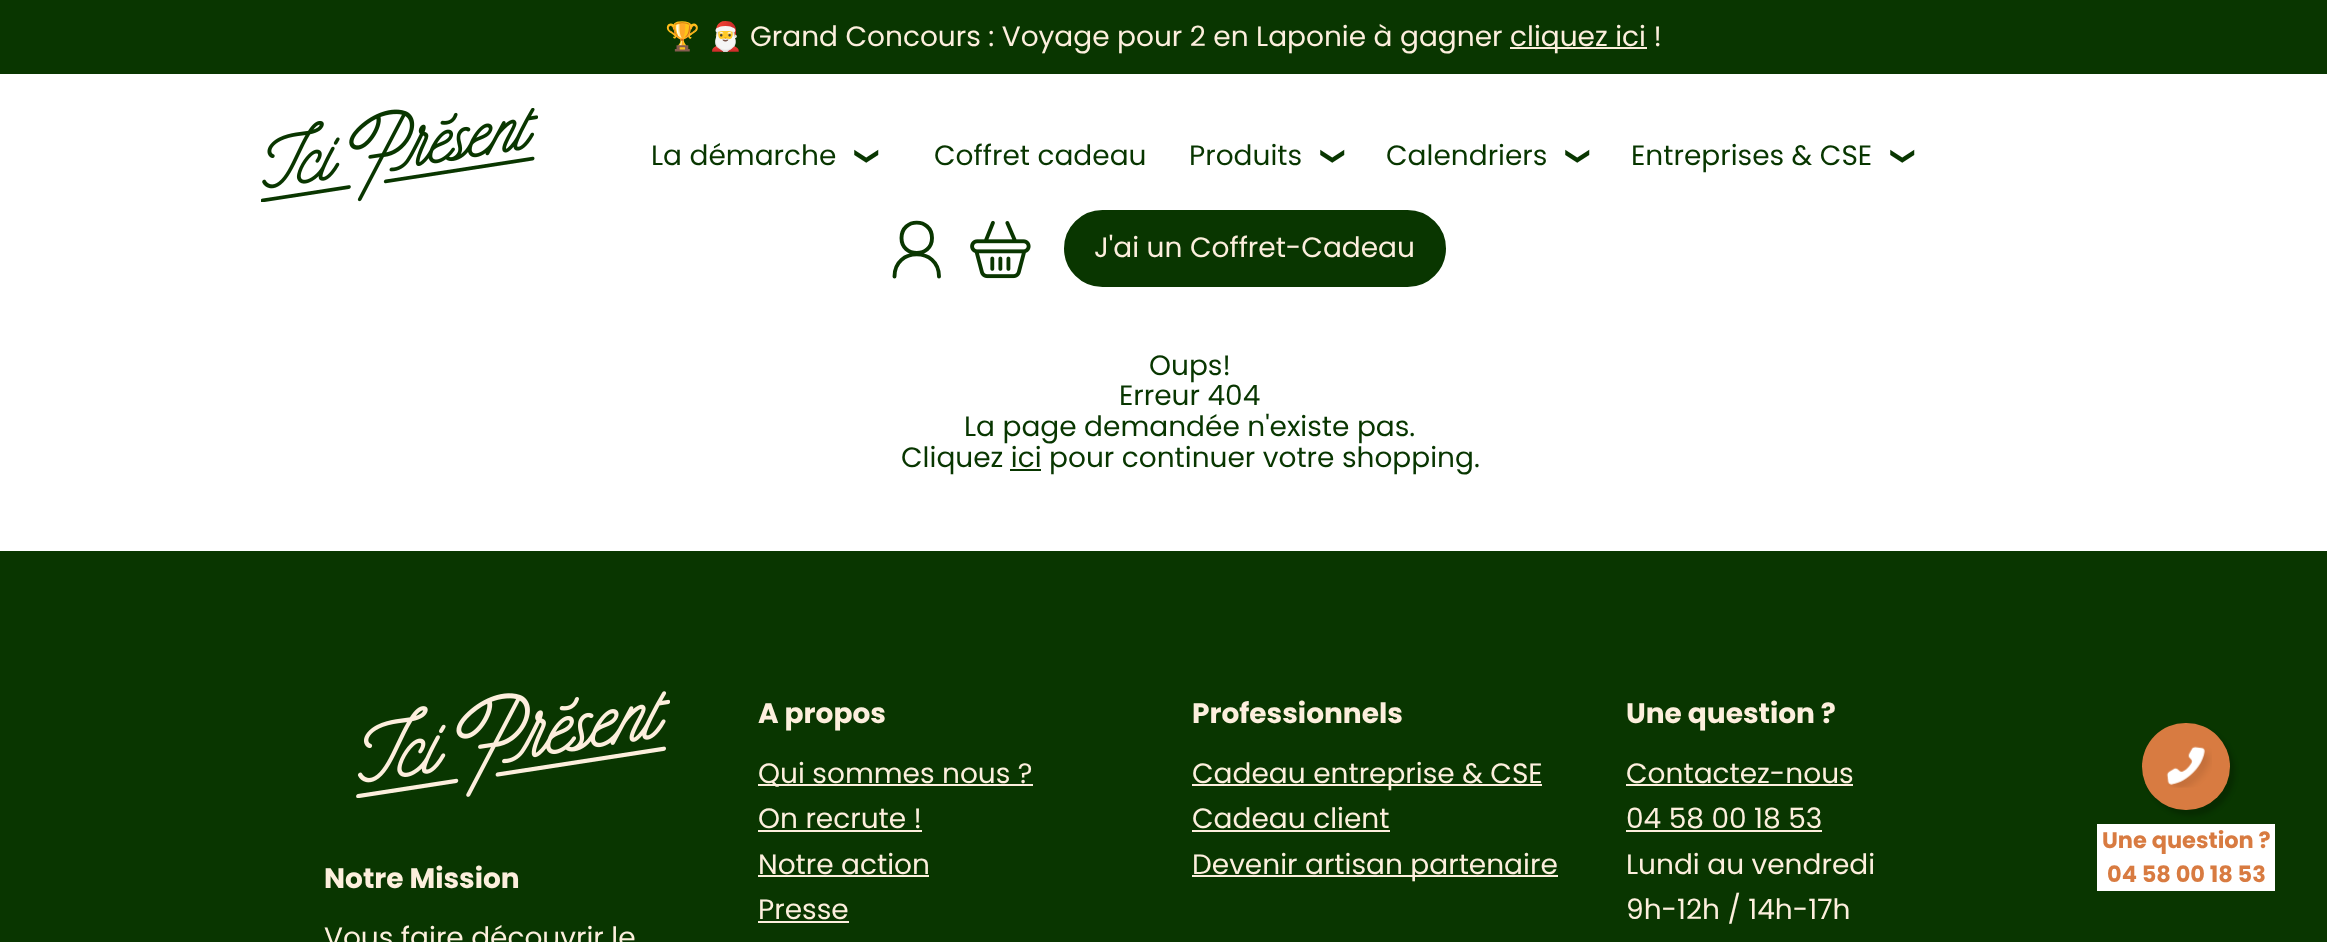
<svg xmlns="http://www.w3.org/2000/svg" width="2327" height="942">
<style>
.a{font:28px Noto Color Emoji;fill:#fdefdd}
.b{font:28px Poppins;fill:#fdefdd}
.c{font:28px Poppins;fill:#083600}
.d{font:24px DejaVu Sans;fill:#083600}
.e{font:bold 28px Poppins;fill:#fdefdd}
.f{font:bold 22.5px Poppins;fill:#d87b41}
</style>
<rect width="100%" height="100%" fill="#fff"/>
<path fill="#093600" d="M0 0h2327v74H0z"/>
<path fill="#fdefdd" d="M1510 47h137v2H1510z"/>
<image href="1.png" x="261" y="108" width="277" height="94"/>
<path fill="none" stroke="#093600" stroke-width="3.9" stroke-linecap="round" d="M894.5 276.5c0-29.5 44.5-29.5 44.5 0m-7-38.5c0 20-30.5 20-30.5 0c0-20.5 30.5-20.5 30.5 0z"/>
<image href="2.png" x="970" y="220" width="61" height="59"/>
<rect fill="#093600" stroke="#093600" stroke-width="2" x="1065" y="211" width="380" height="75" rx="37.5"/>
<path fill="#083600" d="M1010 469h31v2H1010z"/>
<path fill="#093600" d="M0 551h2327v391H0z"/>
<image href="3.png" x="356" y="691" width="314" height="107"/>
<path fill="#fdefdd" d="M758 784h275v2H758z"/>
<path fill="#fdefdd" d="M758 830h164v2H758z"/>
<path fill="#fdefdd" d="M758 875h171v2H758z"/>
<path fill="#fdefdd" d="M758 921h91v2H758z"/>
<path fill="#fdefdd" d="M1192 784h350v2H1192z"/>
<path fill="#fdefdd" d="M1192 830h198v2H1192z"/>
<path fill="#fdefdd" d="M1192 875h366v2H1192z"/>
<path fill="#fdefdd" d="M1626 784h227v2H1626z"/>
<path fill="#fdefdd" d="M1626 830h196v2H1626z"/>
<rect fill="#00000033" filter="blur(2px)" x="2147" y="728" width="88" height="88" rx="44"/>
<rect fill="#d87b41" x="2142" y="723" width="88" height="87" rx="43.5"/>
<image href="4.png" x="2166" y="746" width="46" height="42"/>
<path fill="#fff" d="M2097 824h178v67H2097z"/>
<text class="a" x="665" y="46">🏆</text>
<text class="a" x="708" y="46">🎅</text>
<text class="b" x="750" y="46">Grand Concours : Voyage pour 2 en Laponie à gagner</text>
<text class="b" x="1510" y="46">cliquez ici !</text>
<text class="c" x="651" y="165">La démarche</text>
<text class="d" x="860" y="146" transform="rotate(90 860 146)">❯</text>
<text class="c" x="934" y="165">Coffret cadeau</text>
<text class="c" x="1189" y="165">Produits</text>
<text class="d" x="1326" y="146" transform="rotate(90 1326 146)">❯</text>
<text class="c" x="1386" y="165">Calendriers</text>
<text class="d" x="1571" y="146" transform="rotate(90 1571 146)">❯</text>
<text class="c" x="1631" y="165">Entreprises &amp; CSE</text>
<text class="d" x="1896" y="146" transform="rotate(90 1896 146)">❯</text>
<text class="b" x="1094" y="257">J'ai un Coffret-Cadeau</text>
<text class="c" x="1149" y="375">Oups!</text>
<text class="c" x="1119" y="405">Erreur 404</text>
<text class="c" x="964" y="436">La page demandée n'existe pas.</text>
<text class="c" x="901" y="467">Cliquez ici pour continuer votre shopping.</text>
<text class="e" x="324" y="888">Notre Mission</text>
<text class="b" x="324" y="947">Vous faire découvrir le</text>
<text class="e" x="758" y="723">A propos</text>
<text class="b" x="758" y="783">Qui sommes nous ?</text>
<text class="b" x="758" y="828">On recrute !</text>
<text class="b" x="758" y="874">Notre action</text>
<text class="b" x="758" y="919">Presse</text>
<text class="e" x="1192" y="723">Professionnels</text>
<text class="b" x="1192" y="783">Cadeau entreprise &amp; CSE</text>
<text class="b" x="1192" y="828">Cadeau client</text>
<text class="b" x="1192" y="874">Devenir artisan partenaire</text>
<text class="e" x="1626" y="723">Une question ?</text>
<text class="b" x="1626" y="783">Contactez-nous</text>
<text class="b" x="1626" y="828">04 58 00 18 53</text>
<text class="b" x="1626" y="874">Lundi au vendredi</text>
<text class="b" x="1626" y="919">9h-12h / 14h-17h</text>
<text class="f" x="2102" y="848">Une question ?</text>
<text class="f" x="2107" y="882">04 58 00 18 53</text>
</svg>
